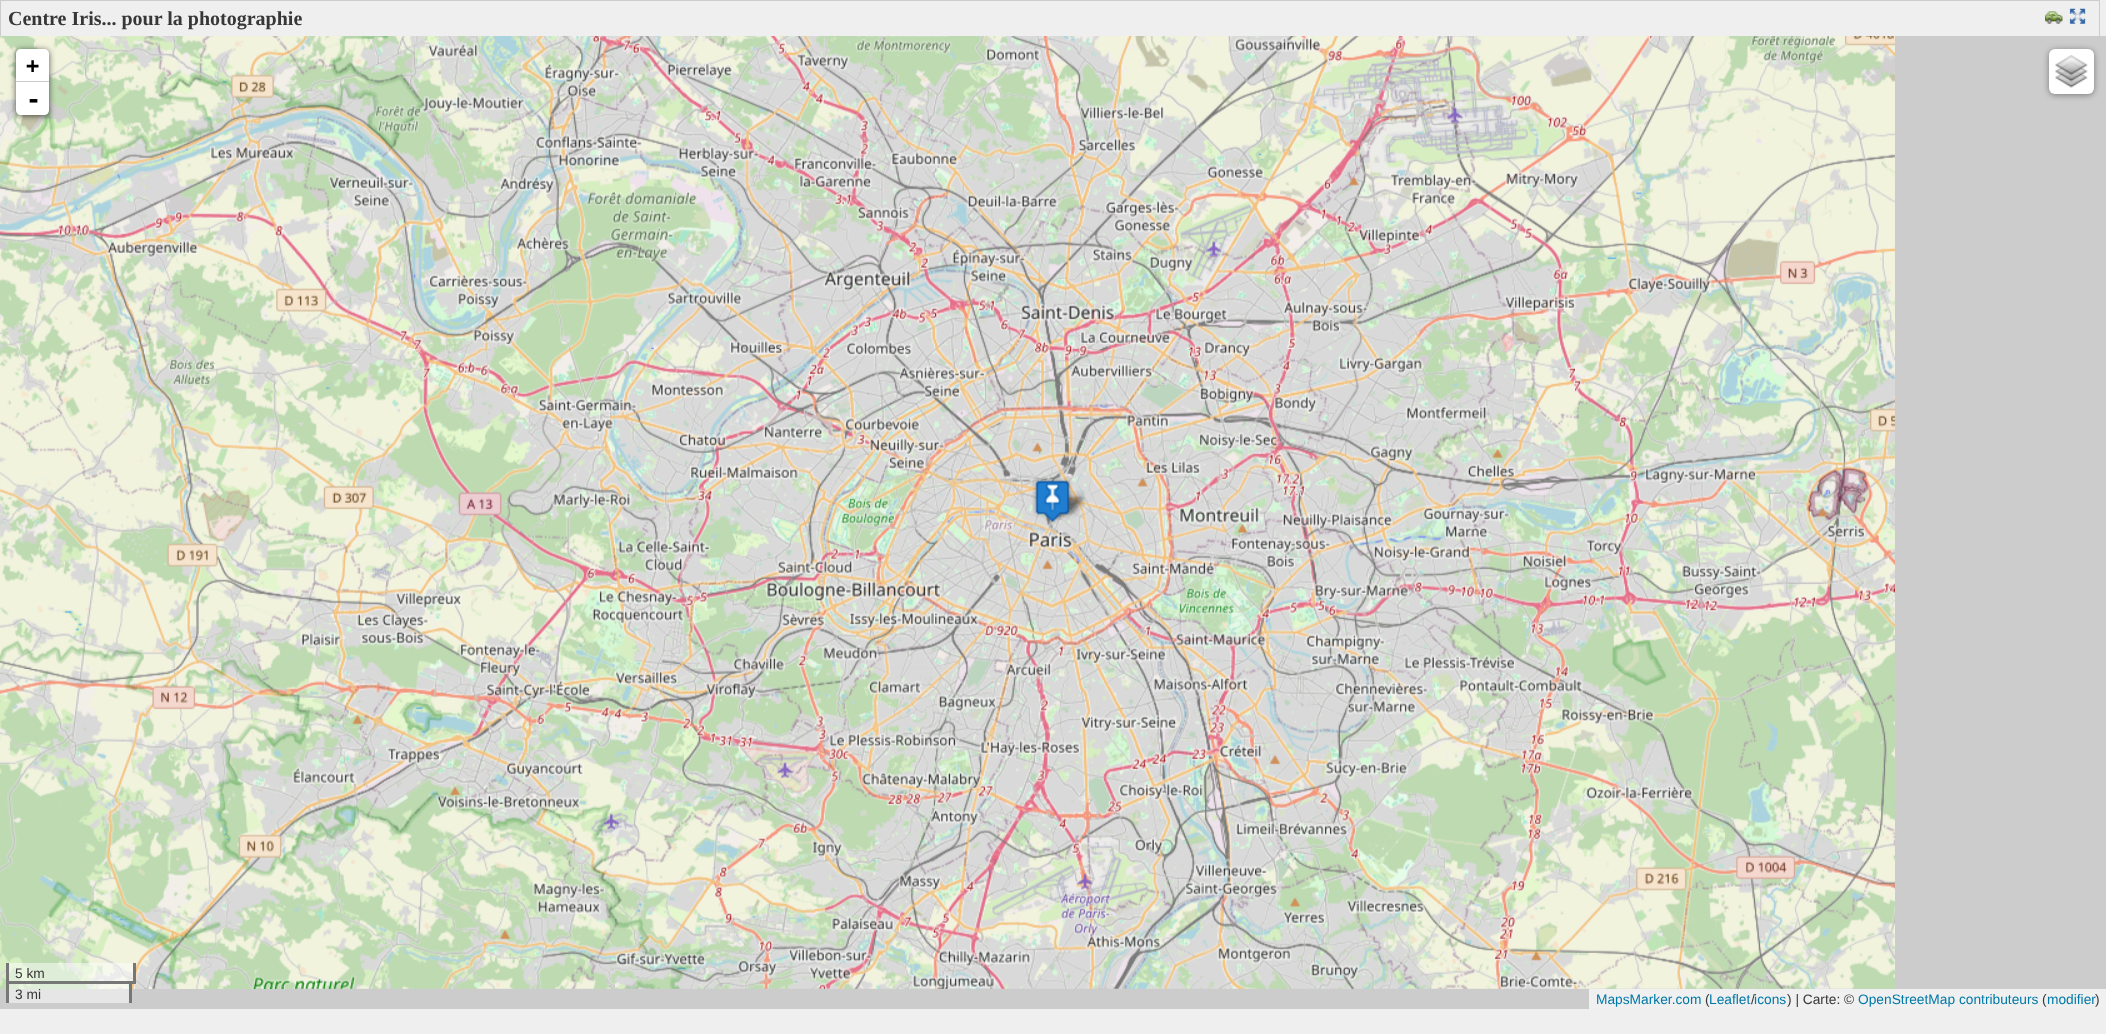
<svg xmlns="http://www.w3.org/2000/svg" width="2106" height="1034">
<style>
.a{font:bold 20px Liberation Serif;fill:#373737}
.b{font:bold 22px DejaVu Sans Mono;fill:#000}
.c{font:bold 25px DejaVu Sans Mono;fill:#000}
.d{font:13.75px Liberation Sans;fill:#373737}
.e{font:13.75px Liberation Sans;fill:#0078a8}
</style>
<rect width="100%" height="100%" fill="#efefef"/>
<path fill="#ccc" d="M0 0h2100v1H0z"/>
<path fill="#ccc" d="M2099 0h1v36H2099z"/>
<path fill="#ccc" d="M0 0h1v36H0z"/>
<image href="1.png" x="2045" y="11" width="18" height="13"/>
<image href="2.png" x="2069" y="8" width="17" height="16"/>
<path fill="#ccc" d="M0 36h2106v973H0z"/>
<image href="3.png" x="0" y="36" width="295" height="313"/>
<image href="4.png" x="295" y="36" width="320" height="313"/>
<image href="5.png" x="615" y="36" width="320" height="313"/>
<image href="6.png" x="935" y="36" width="320" height="313"/>
<image href="7.png" x="1255" y="36" width="320" height="313"/>
<image href="8.png" x="1575" y="36" width="320" height="313"/>
<image href="9.png" x="0" y="349" width="295" height="320"/>
<image href="10.png" x="295" y="349" width="320" height="320"/>
<image href="11.png" x="615" y="349" width="320" height="320"/>
<image href="12.png" x="935" y="349" width="320" height="320"/>
<image href="13.png" x="1255" y="349" width="320" height="320"/>
<image href="14.png" x="1575" y="349" width="320" height="320"/>
<image href="15.png" x="0" y="669" width="295" height="320"/>
<image href="16.png" x="295" y="668" width="320" height="321"/>
<image href="17.png" x="615" y="668" width="320" height="321"/>
<image href="18.png" x="935" y="668" width="320" height="321"/>
<image href="19.png" x="1255" y="668" width="320" height="321"/>
<image href="20.png" x="1575" y="668" width="320" height="321"/>
<image href="22.png" x="1047" y="490" width="38" height="30"/>
<image href="21.png" x="1032" y="477" width="41" height="47"/>
<rect fill="#000000a6" filter="blur(3px)" x="16" y="50" width="33" height="66" rx="5"/>
<path fill="#fff" d="M21 49h23c3 0 5 2 5 5v29h-33v-29c0-3 2-5 5-5z"/>
<path fill="#ccc" d="M16 81h33v1H16z"/>
<path fill="#fff" d="M16 83h33v27c0 3-2 5-5 5h-23c-3 0-5-2-5-5z"/>
<rect fill="#00000066" filter="blur(3px)" x="2049" y="50" width="45" height="45" rx="6"/>
<rect fill="#fff" x="2049" y="49" width="45" height="45" rx="6"/>
<image href="23.png" x="2055" y="55" width="33" height="33"/>
<path fill="#ffffff80" d="M9 963h124v18H9z"/>
<path fill="#777" d="M133 963h3v21H133z"/>
<path fill="#777" d="M132 981h3v3H132z"/>
<path fill="#777" d="M6 963h3v21H6z"/>
<path fill="#ffffff80" d="M9 984h120v19H9z"/>
<path fill="#777" d="M6 981h125v3H6z"/>
<path fill="#777" d="M129 981h3v22H129z"/>
<path fill="#777" d="M6 981h3v22H6z"/>
<path fill="#f0f0f0" d="M1589 989h517v20H1589z"/>
<text class="a" x="8" y="25">Centre Iris... pour la photographie</text>
<text class="b" x="26" y="73">+</text>
<text class="c" x="26" y="108">-</text>
<text class="d" x="15" y="978">5 km</text>
<text class="d" x="15" y="999">3 mi</text>
<text class="e" x="1596" y="1004">MapsMarker.com</text>
<text class="d" x="1705" y="1004">(</text>
<text class="e" x="1709" y="1004">Leaflet icons</text>
<text class="d" x="1751" y="1004">/</text>
<text class="d" x="1787" y="1004">) | Carte: ©</text>
<text class="e" x="1858" y="1004">OpenStreetMap contributeurs</text>
<text class="d" x="2042" y="1004">(</text>
<text class="e" x="2047" y="1004">modifier</text>
<text class="d" x="2095" y="1004">)</text>
</svg>
